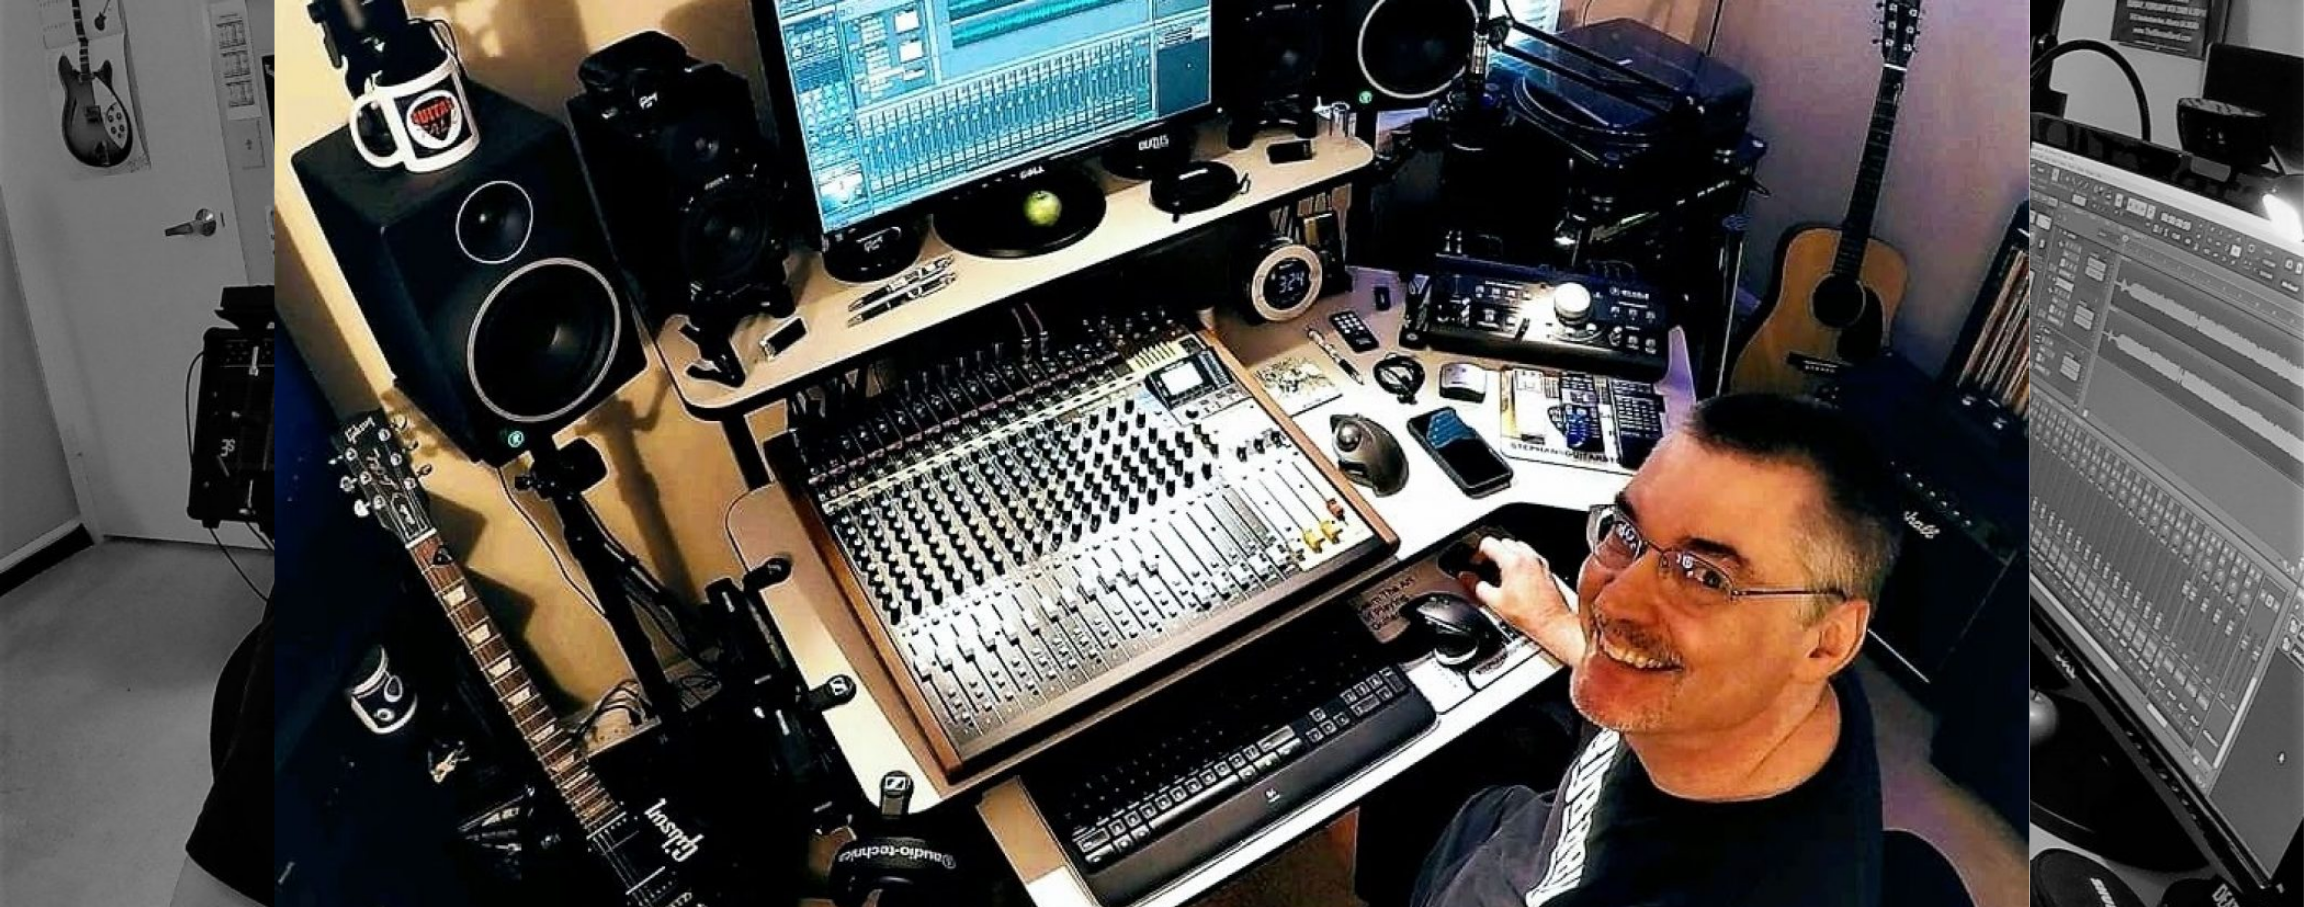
<svg xmlns="http://www.w3.org/2000/svg" width="2304" height="907">
<rect width="100%" height="100%" fill="#fff"/>
<image href="1.png" x="0" y="0" width="2304" height="907"/>
<path fill="#fff" d="M2029 0h1v907H2029z"/>
<image href="2.png" x="274" y="0" width="1756" height="907"/>
</svg>
